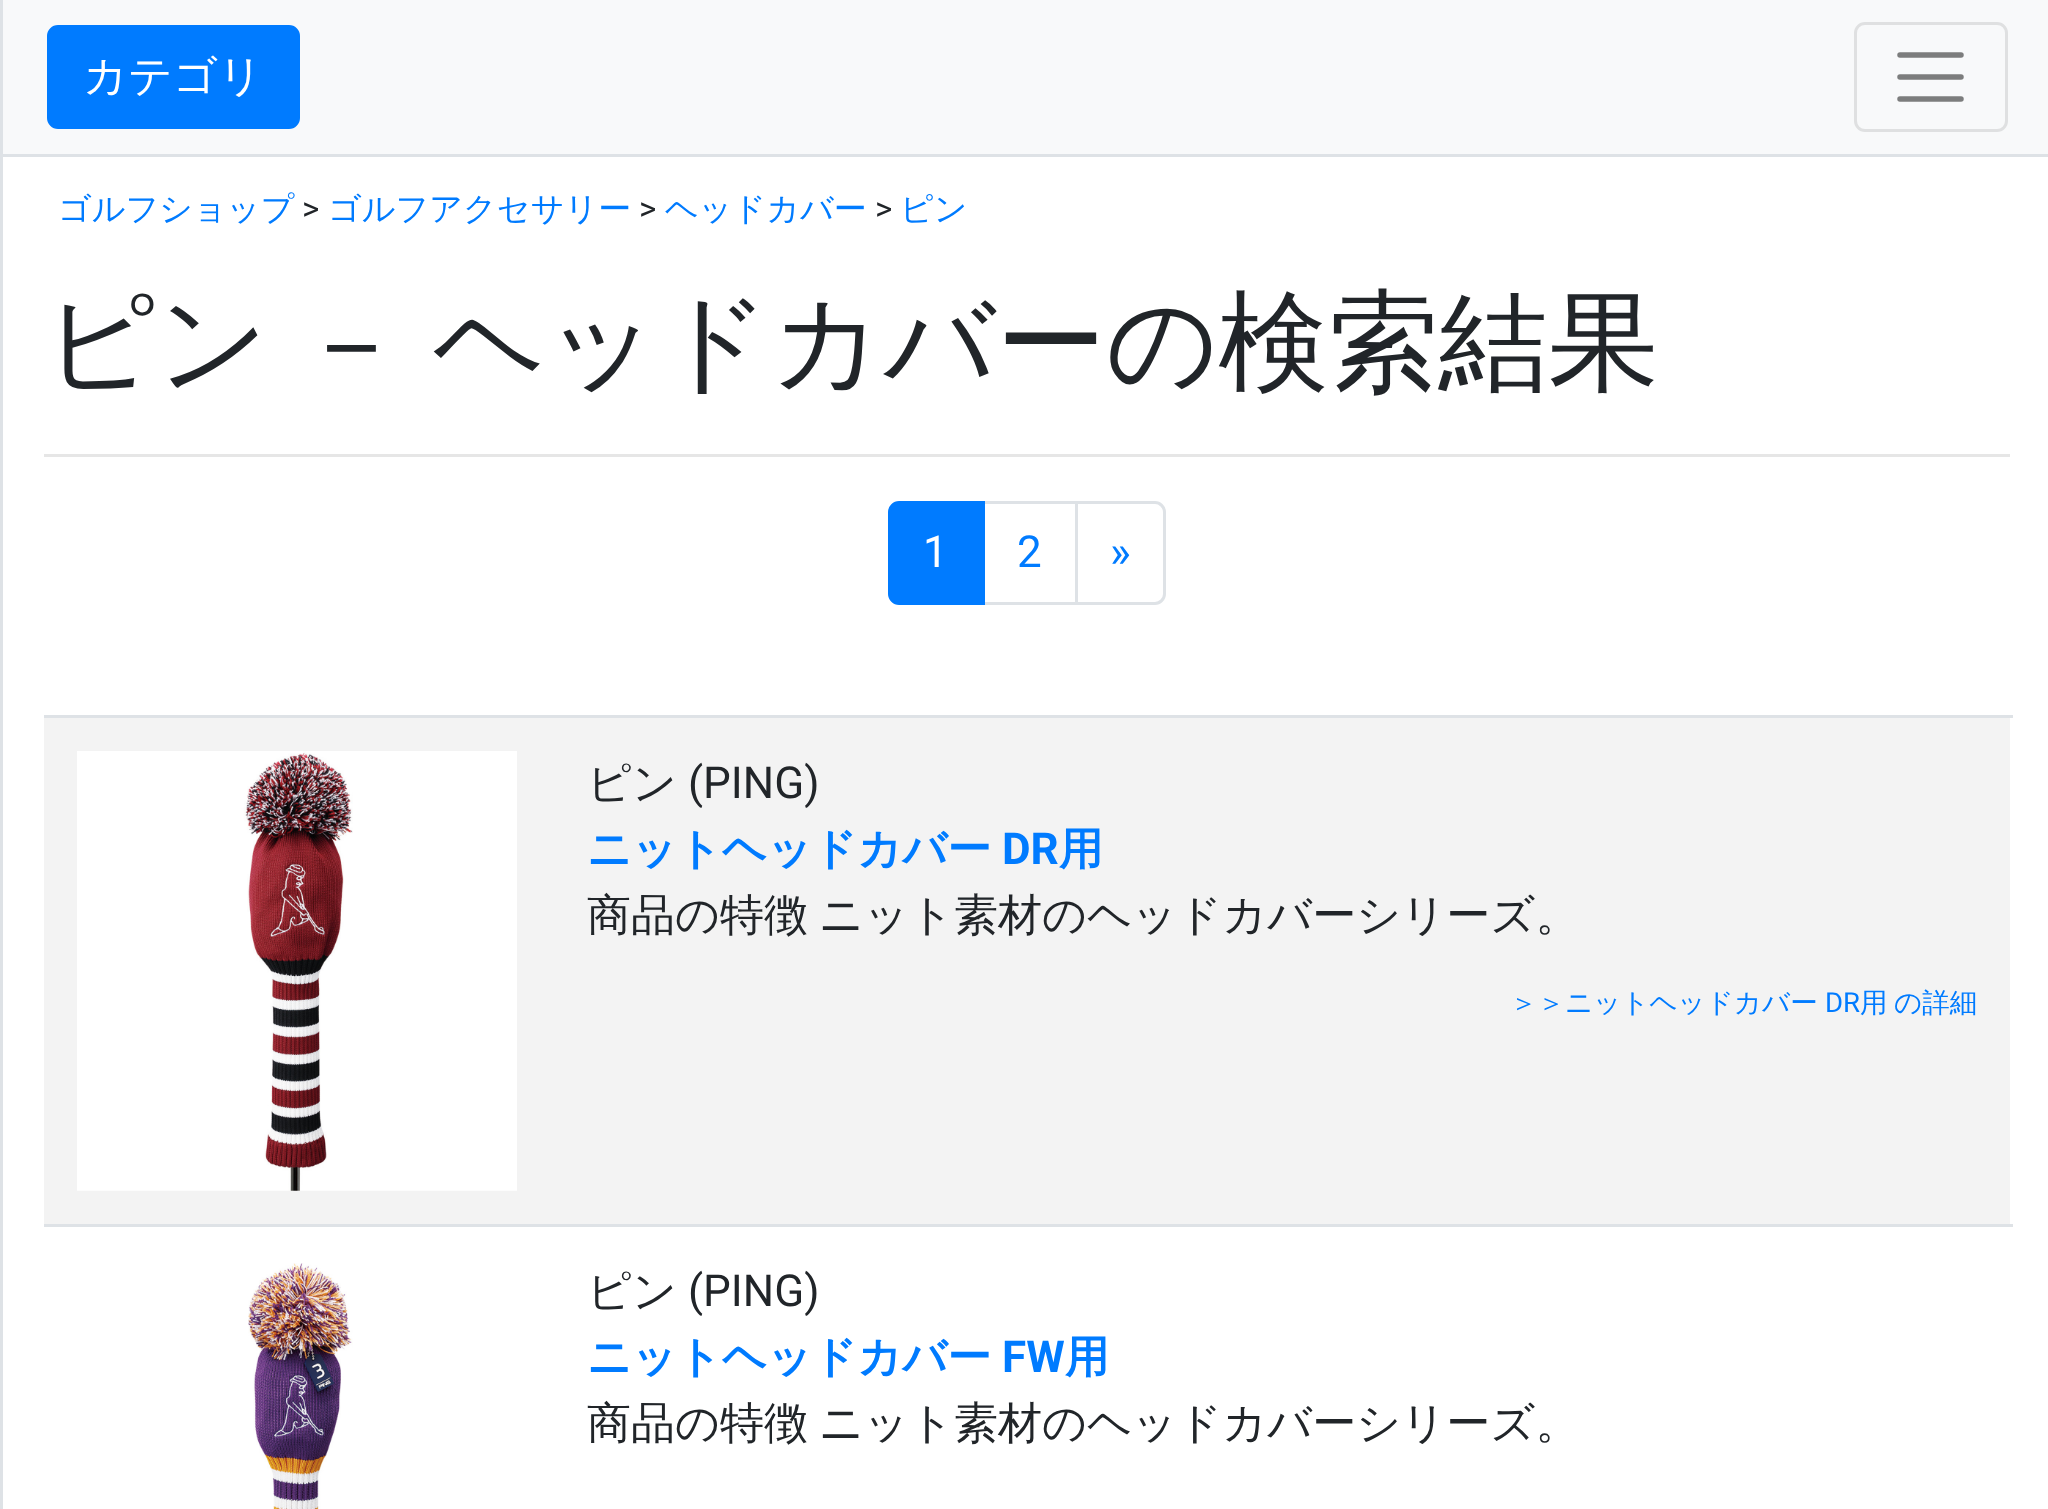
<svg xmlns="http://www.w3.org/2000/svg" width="2048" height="1509">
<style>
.a{font:500 44px WenQuanYi Zen Hei;fill:#fff}
.b{font:500 33px WenQuanYi Zen Hei;fill:#007bff}
.c{font:33px Roboto;fill:#212529}
.d{font:500 110px WenQuanYi Zen Hei;fill:#212529}
.e{font:44px Roboto;fill:#fff}
.f{font:44px Roboto;fill:#007bff}
.g{font:500 44px WenQuanYi Zen Hei;fill:#212529}
.h{font:44px Roboto;fill:#212529}
.i{font:bold 44px WenQuanYi Zen Hei;fill:#007bff}
.j{font:bold 44px Roboto;fill:#007bff}
.k{font:500 27.5px WenQuanYi Zen Hei;fill:#007bff}
.l{font:27.5px Roboto;fill:#007bff}
</style>
<rect width="100%" height="100%" fill="#fff"/>
<path fill="#dee2e6" d="M0 0h3v1509H0z"/>
<path fill="#f8f9fa" d="M3 0h2045v154H3z"/>
<path fill="#dee2e6" d="M3 154h2045v3H3z"/>
<rect fill="#007bff" stroke="#007bff" stroke-width="3" x="48.5" y="26.5" width="250" height="101" rx="9.5"/>
<rect fill="none" stroke="#dfe0e1" stroke-width="3" x="1855.5" y="23.5" width="151" height="107" rx="9.5"/>
<path fill="none" stroke="#7c7d7d" stroke-width="5.5" stroke-linecap="round" d="M1900 55h61m-61 22h61m-61 22h61"/>
<path fill="#e6e6e6" d="M44 454h1966v3H44z"/>
<path fill="none" stroke="#dee2e6" stroke-width="3" d="M983.5 502.5h93v101H983.5z"/>
<path fill="#007bff" stroke="#007bff" stroke-width="3" d="M899 502.5h84.5v101h-84.5c-5 0-9.5-4.5-9.5-9.5v-82c0-5 4.5-9.5 9.5-9.5z"/>
<path fill="#fff" stroke="#dee2e6" stroke-width="3" d="M1076.5 502.5h78.5c5 0 9.5 4.5 9.5 9.5v82c0 5-4.5 9.5-9.5 9.5h-78.5z"/>
<path fill="#f3f3f3" d="M44 718h1966v506H44z"/>
<image href="1.png" x="77" y="751" width="440" height="440"/>
<path fill="#dee2e6" d="M44 715h1969v3H44z"/>
<image href="2.png" x="248" y="1263" width="105" height="246"/>
<path fill="#dee2e6" d="M44 1224h1969v3H44z"/>
<text class="a" x="83" y="91">カテゴリ</text>
<text class="b" x="58" y="220">ゴルフショップ</text>
<text class="c" x="302" y="220">&gt;</text>
<text class="b" x="328" y="220">ゴルフアクセサリー</text>
<text class="c" x="639" y="220">&gt;</text>
<text class="b" x="665" y="220">ヘッドカバー</text>
<text class="c" x="875" y="220">&gt;</text>
<text class="b" x="900" y="220">ピン</text>
<text class="d" x="44" y="380" word-spacing="-6">ピン － ヘッドカバーの検索結果</text>
<text class="e" x="923" y="567">1</text>
<text class="f" x="1017" y="567">2</text>
<text class="f" x="1110" y="567">»</text>
<text class="g" x="587" y="798">ピン</text>
<text class="h" x="688" y="798">(PING)</text>
<text class="i" x="587" y="864">ニットヘッドカバー</text>
<text class="j" x="1002" y="864">DR</text>
<text class="i" x="1059" y="864">用</text>
<text class="g" x="587" y="930">商品の特徴</text>
<text class="g" x="819" y="930">ニット素材のヘッドカバーシリーズ。</text>
<text class="k" x="1510" y="1012">＞＞ニットヘッドカバー</text>
<text class="l" x="1825" y="1012">DR</text>
<text class="k" x="1860" y="1012">用</text>
<text class="k" x="1894" y="1012">の詳細</text>
<text class="g" x="587" y="1306">ピン</text>
<text class="h" x="688" y="1306">(PING)</text>
<text class="i" x="587" y="1372">ニットヘッドカバー</text>
<text class="j" x="1002" y="1372">FW</text>
<text class="i" x="1065" y="1372">用</text>
<text class="g" x="587" y="1438">商品の特徴</text>
<text class="g" x="819" y="1438">ニット素材のヘッドカバーシリーズ。</text>
</svg>
